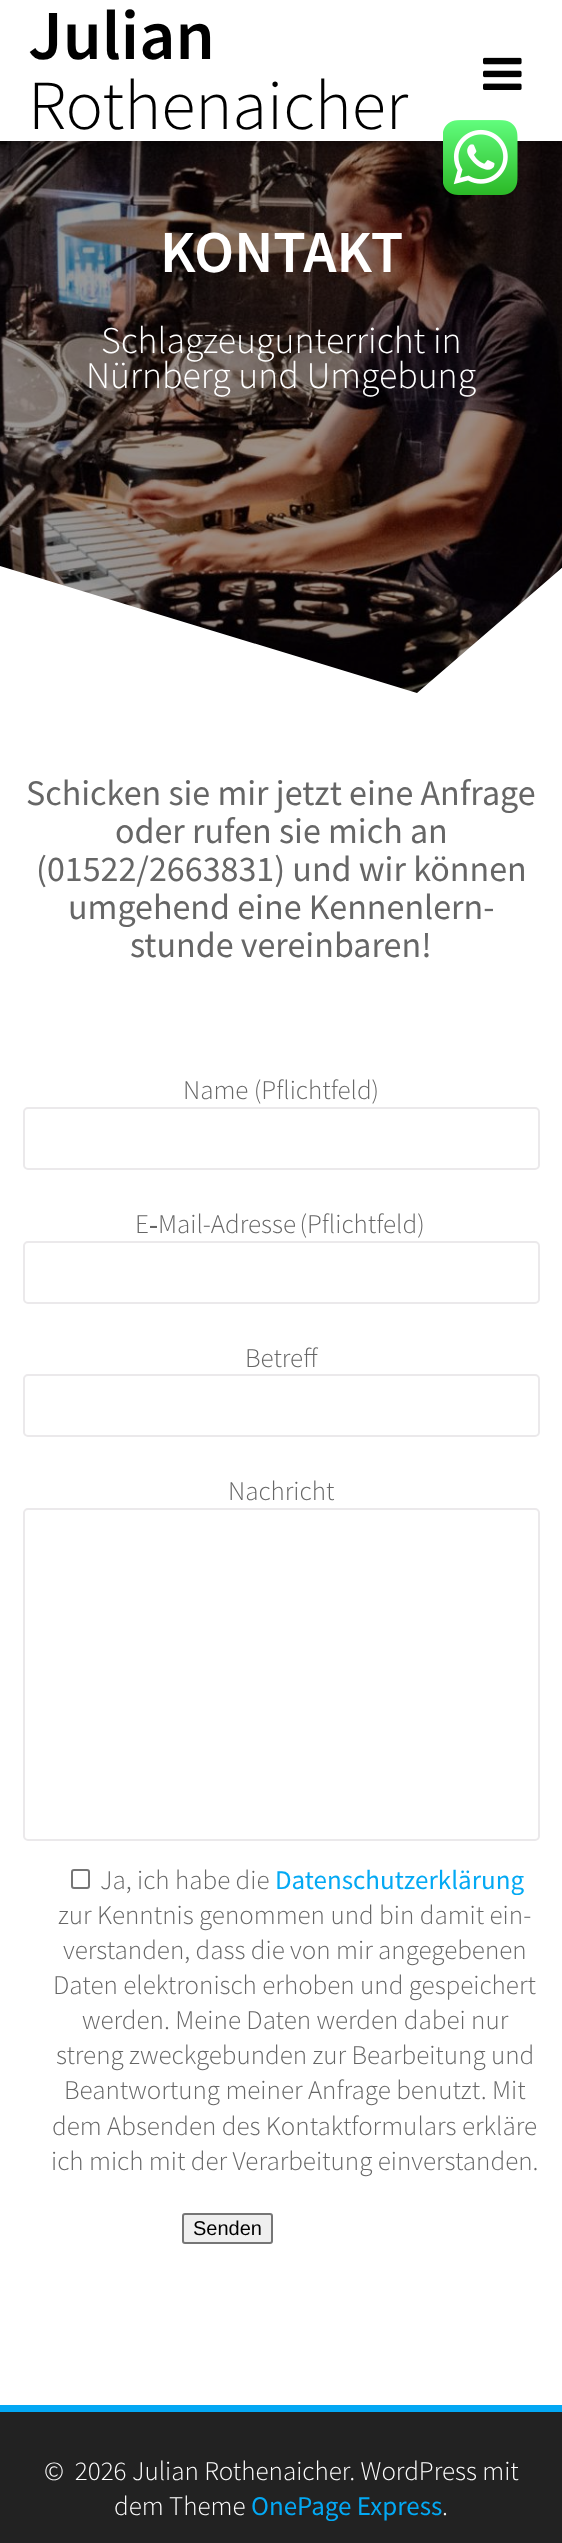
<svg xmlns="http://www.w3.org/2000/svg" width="562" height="2543">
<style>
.a{font:600 70.25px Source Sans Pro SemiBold;fill:#000}
.b{font:300 70.25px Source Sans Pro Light;fill:#000}
.c{font:600 59.5px Source Sans Pro SemiBold;fill:#fff}
.d{font:300 37.75px Source Sans Pro Light;fill:#fff}
.e{font:36px Source Sans Pro;fill:#666}
.f{font:300 27px Source Sans Pro Light;fill:#666}
.g{font:27px Source Sans Pro;fill:#03a9f4}
.h{font:20px Liberation Sans;fill:#000}
.i{font:300 27px Source Sans Pro Light;fill:#fff}
</style>
<rect width="100%" height="100%" fill="#fff"/>
<image href="3.png" x="0" y="141" width="562" height="552"/>
<path fill="#00000066" d="M0 141h562v552H0z"/>
<path fill="#00000054" filter="blur(4px)" d="M-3 -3h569v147H-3z"/>
<path fill="#fff" d="M0 0h562v141H0z"/>
<image href="1.png" x="483" y="57" width="39" height="33"/>
<image href="2.png" x="443" y="120" width="75" height="75"/>
<path fill="#fff" d="M417 693l-417-127v134h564v-134z"/>
<rect fill="none" stroke="#ebe9eb" stroke-width="2" x="24" y="1108" width="515" height="61" rx="4"/>
<rect fill="none" stroke="#ebe9eb" stroke-width="2" x="24" y="1242" width="515" height="61" rx="4"/>
<rect fill="none" stroke="#ebe9eb" stroke-width="2" x="24" y="1375" width="515" height="61" rx="4"/>
<rect fill="none" stroke="#ebe9eb" stroke-width="2" x="24" y="1509" width="515" height="331" rx="4"/>
<rect fill="none" stroke="#767676" stroke-width="2" x="72" y="1870" width="17" height="18" rx="2"/>
<rect fill="#efefef" stroke="#767676" stroke-width="2" x="183" y="2214" width="89" height="29" rx="2"/>
<path fill="#222" d="M0 2412h562v131H0z"/>
<path fill="#03a8f4" d="M0 2405h562v7H0z"/>
<text class="a" x="28" y="59">Julian</text>
<text class="b" x="28" y="129">Rothenaicher</text>
<text class="c" x="160" y="272">KONTAKT</text>
<text class="d" x="101" y="353">Schlagzeugunterricht in</text>
<text class="d" x="86" y="388">Nürnberg und Umgebung</text>
<text class="e" x="26" y="805">Schicken sie mir jetzt eine Anfrage</text>
<text class="e" x="115" y="843">oder rufen sie mich an</text>
<text class="e" x="36" y="881">(01522/2663831) und wir können</text>
<text class="e" x="68" y="919">umgehend eine Kennenlern-</text>
<text class="e" x="130" y="957">stunde vereinbaren!</text>
<text class="f" x="183" y="1099">Name (Pflichtfeld)</text>
<text class="f" x="135" y="1233" word-spacing="-2">E‑Mail-Adresse (Pflichtfeld)</text>
<text class="f" x="245" y="1367">Betreff</text>
<text class="f" x="228" y="1500">Nachricht</text>
<text class="f" x="100" y="1889">Ja, ich habe die</text>
<text class="g" x="275" y="1889">Datenschutzerklärung</text>
<text class="f" x="58" y="1924">zur Kenntnis genommen und bin damit ein-</text>
<text class="f" x="63" y="1959">verstanden, dass die von mir angegebenen</text>
<text class="f" x="53" y="1994">Daten elektronisch erhoben und gespeichert</text>
<text class="f" x="82" y="2029">werden. Meine Daten werden dabei nur</text>
<text class="f" x="56" y="2064">streng zweckgebunden zur Bearbeitung und</text>
<text class="f" x="64" y="2099">Beantwortung meiner Anfrage benutzt. Mit</text>
<text class="f" x="52" y="2135">dem Absenden des Kontaktformulars erkläre</text>
<text class="f" x="51" y="2170">ich mich mit der Verarbeitung einverstanden.</text>
<text class="h" x="193" y="2235">Senden</text>
<text class="i" xml:space="preserve" x="44" y="2480">©  2026 Julian Rothenaicher. WordPress mit</text>
<text class="i" x="114" y="2515">dem Theme</text>
<text class="g" x="251" y="2515">OnePage Express</text>
<text class="i" x="442" y="2515">.</text>
</svg>
